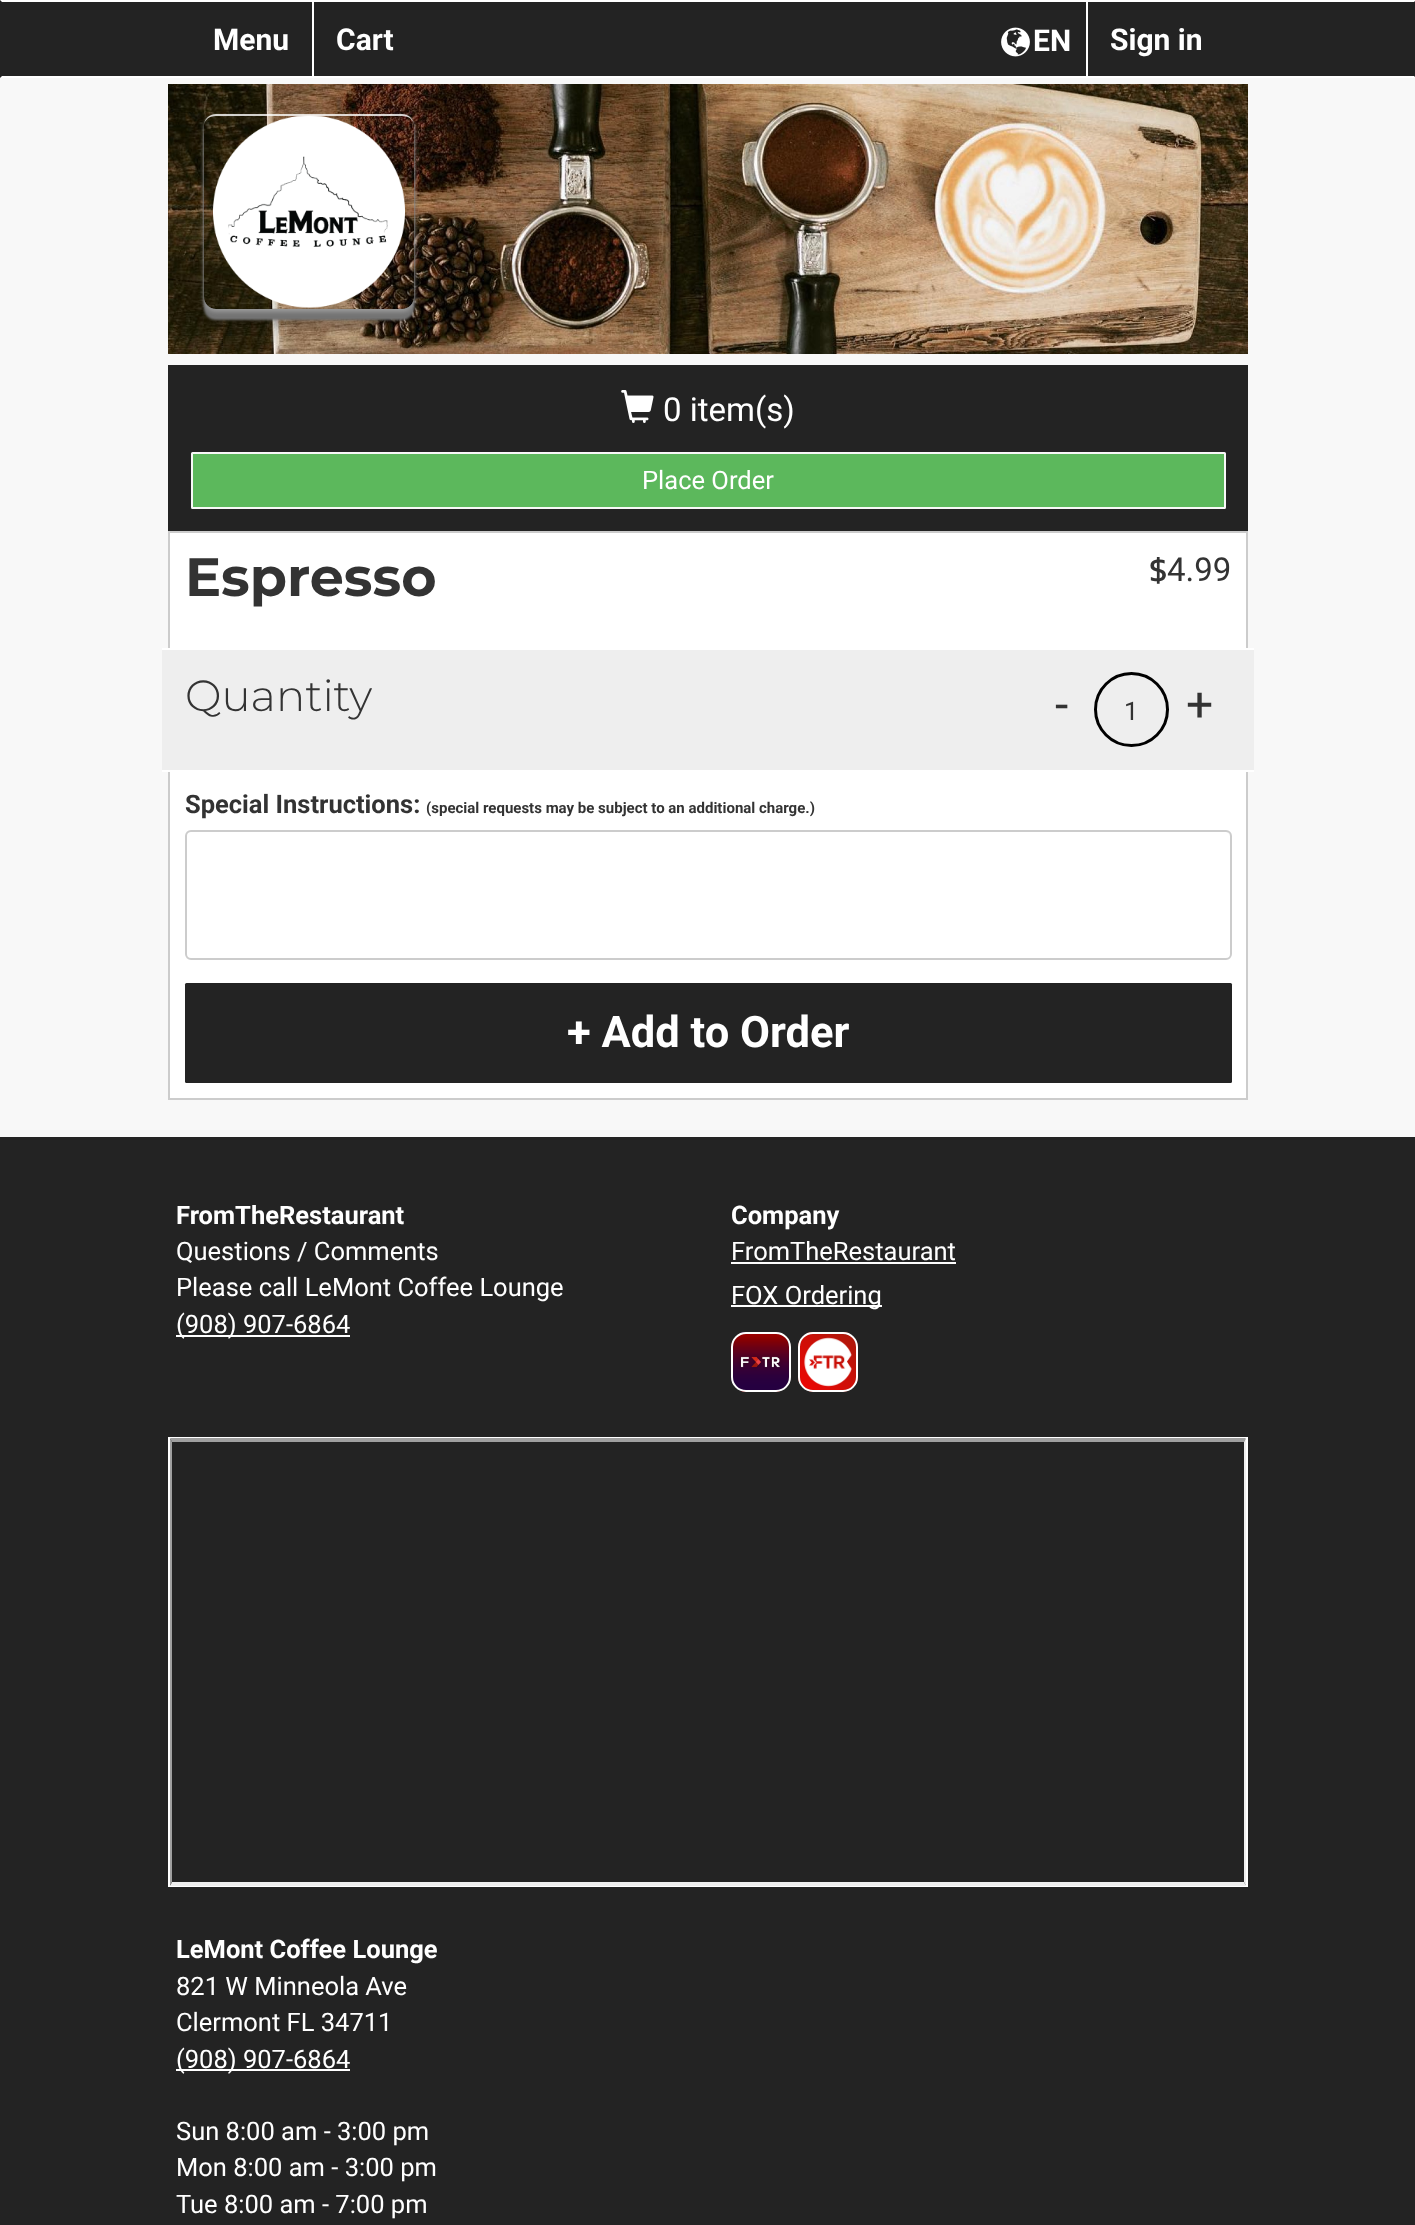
<svg xmlns="http://www.w3.org/2000/svg" width="1415" height="2225">
<style>
.a{font:bold 30px Roboto;fill:#fff}
.b{font:33px Roboto;fill:#fff}
.c{font:25.5px Roboto;fill:#fff}
.d{font:bold 54px Montserrat;fill:#333}
.e{font:33px Kanit;fill:#333}
.f{font:33px Roboto;fill:#333}
.g{font:300 43.5px Montserrat;fill:#333}
.h{font:48px Roboto;fill:#333}
.i{font:25.5px Roboto;fill:#333}
.j{font:bold 25.5px Roboto;fill:#333}
.k{font:bold 15px Roboto;fill:#333}
.l{font:bold 43.5px Roboto;fill:#fff}
.m{font:bold 25.5px Roboto;fill:#fff}
</style>
<defs>
<clipPath id="clip1"><path d="M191 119h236v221h-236zm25-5h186c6.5 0 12 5.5 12 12v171c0 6.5-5.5 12-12 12h-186c-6.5 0-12-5.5-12-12v-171c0-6.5 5.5-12 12-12z" clip-rule="evenodd"/></clipPath>
<clipPath id="clip2"><path d="M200 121h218v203h-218zm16-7h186c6.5 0 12 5.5 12 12v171c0 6.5-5.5 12-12 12h-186c-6.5 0-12-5.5-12-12v-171c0-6.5 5.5-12 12-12z" clip-rule="evenodd"/></clipPath>
<clipPath id="clip3"><path d="M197 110h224v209h-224zm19 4h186c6.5 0 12 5.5 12 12v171c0 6.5-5.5 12-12 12h-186c-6.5 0-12-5.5-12-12v-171c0-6.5 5.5-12 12-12z" clip-rule="evenodd"/></clipPath>
</defs>
<rect width="100%" height="100%" fill="#f8f8f8"/>
<path fill="#232323" d="M0 0h1415v78H0z"/>
<path fill="#fff" d="M0 0h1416l-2 2h-1412z"/>
<path fill="#fff" d="M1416 78h-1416l2-2h1412z"/>
<path fill="#fff" d="M312 2h2v75H312z"/>
<image href="1.png" x="1001" y="27" width="29" height="30"/>
<path fill="#fff" d="M1086 2h2v75H1086z"/>
<image href="2.png" x="168" y="84" width="1080" height="270"/>
<g clip-path="url(#clip1)">
<rect fill="#00000033" filter="blur(4px)" x="204" y="132" width="210" height="195" rx="12"/>
</g>
<g clip-path="url(#clip2)">
<rect fill="#737373" filter="blur(1px)" x="204" y="125" width="210" height="195" rx="12"/>
</g>
<g clip-path="url(#clip3)">
<rect fill="#999" filter="blur(2px)" x="204" y="117" width="210" height="195" rx="12"/>
</g>
<image href="3.png" x="213" y="115" width="192" height="193"/>
<path fill="#ffffffcc" d="M216 114c-7 0-12 5-12 12c0-6 5-10 12-10h186c7 0 12 4 12 10c0-7-5-12-12-12z"/>
<path fill="#0000001a" d="M402 309c7 0 12-5 12-12c0 6-5 11-12 11h-186c-7 0-12-5-12-11c0 7 5 12 12 12z"/>
<path fill="#232323" d="M168 365h1080v166H168z"/>
<image href="4.png" x="621" y="390" width="33" height="33"/>
<rect fill="#5cb85c" stroke="#f8f8f8" stroke-width="2" x="192" y="453" width="1033" height="55" rx="0.5"/>
<path fill="#fff" stroke="#ccc" stroke-width="2" d="M169 532h1078v567H169z"/>
<path fill="#eee" d="M162 650h1092v120H162z"/>
<path fill="#fff" d="M162 648h1092v2H162z"/>
<path fill="#fff" d="M162 770h1092v2H162z"/>
<circle fill="none" stroke="#000" stroke-width="3" cx="1131.5" cy="709.5" r="36"/>
<path fill="#ececec" d="M190 832h1036c2 0 4 3 4 5c0-3-2-6-5-6h-1034c-3 0-5 3-5 6c0-2 2-5 4-5z"/>
<rect fill="none" stroke="#ccc" stroke-width="2" x="186" y="831" width="1045" height="128" rx="5"/>
<rect fill="#232323" x="185" y="983" width="1047" height="100" rx="1.5"/>
<path fill="#232323" d="M0 1137h1415v1088H0z"/>
<path fill="#fff" d="M176 1335h174v2H176z"/>
<path fill="#fff" d="M731 1262h225v2H731z"/>
<path fill="#fff" d="M731 1305h151v2H731z"/>
<image href="5.png" x="730" y="1332" width="61" height="60"/>
<rect fill="none" stroke="#fff" stroke-width="2" x="732" y="1333" width="58" height="58" rx="14"/>
<image href="6.png" x="798" y="1332" width="60" height="60"/>
<rect fill="none" stroke="#fff" stroke-width="2" x="799" y="1333" width="58" height="58" rx="14"/>
<path fill="none" stroke="#fff" stroke-width="2" d="M169 1438h1078v448H169z"/>
<path fill="#9f9f9f" d="M170 1438h1076l-2 4h-1072z"/>
<path fill="#eee" d="M1246 1438v448l-2-4v-440z"/>
<path fill="#eee" d="M1246 1886h-1076l2-4h1072z"/>
<path fill="#9f9f9f" d="M170 1886v-448l2 4v440z"/>
<path fill="#fff" d="M176 2069h174v2H176z"/>
<text class="a" x="213" y="50">Menu</text>
<text class="a" x="336" y="50">Cart</text>
<text class="a" x="1033" y="51">EN</text>
<text class="a" x="1110" y="50">Sign in</text>
<text class="b" x="663" y="421">0 item(s)</text>
<text class="c" x="642" y="489">Place Order</text>
<text class="d" x="185" y="596">Espresso</text>
<text class="e" x="1149" y="581">$</text>
<text class="f" x="1167" y="581">4.99</text>
<text class="g" x="185" y="711">Quantity</text>
<text class="h" x="1055" y="721">-</text>
<text class="i" x="1124" y="720">1</text>
<text class="h" x="1186" y="721">+</text>
<text class="j" x="185" y="813">Special Instructions:</text>
<text class="k" x="426" y="813">(special requests may be subject to an additional charge.)</text>
<text class="l" x="567" y="1047">+ Add to Order</text>
<text class="m" x="176" y="1224">FromTheRestaurant</text>
<text class="c" x="176" y="1260">Questions / Comments</text>
<text class="c" x="176" y="1296">Please call LeMont Coffee Lounge</text>
<text class="c" x="176" y="1333">(908) 907-6864</text>
<text class="m" x="731" y="1224">Company</text>
<text class="c" x="731" y="1260">FromTheRestaurant</text>
<text class="c" x="731" y="1304">FOX Ordering</text>
<text class="m" x="176" y="1958">LeMont Coffee Lounge</text>
<text class="c" x="176" y="1995">821 W Minneola Ave</text>
<text class="c" x="176" y="2031">Clermont FL 34711</text>
<text class="c" x="176" y="2068">(908) 907-6864</text>
<text class="c" x="176" y="2140">Sun 8:00 am - 3:00 pm</text>
<text class="c" x="176" y="2176">Mon 8:00 am - 3:00 pm</text>
<text class="c" x="176" y="2213">Tue 8:00 am - 7:00 pm</text>
</svg>
